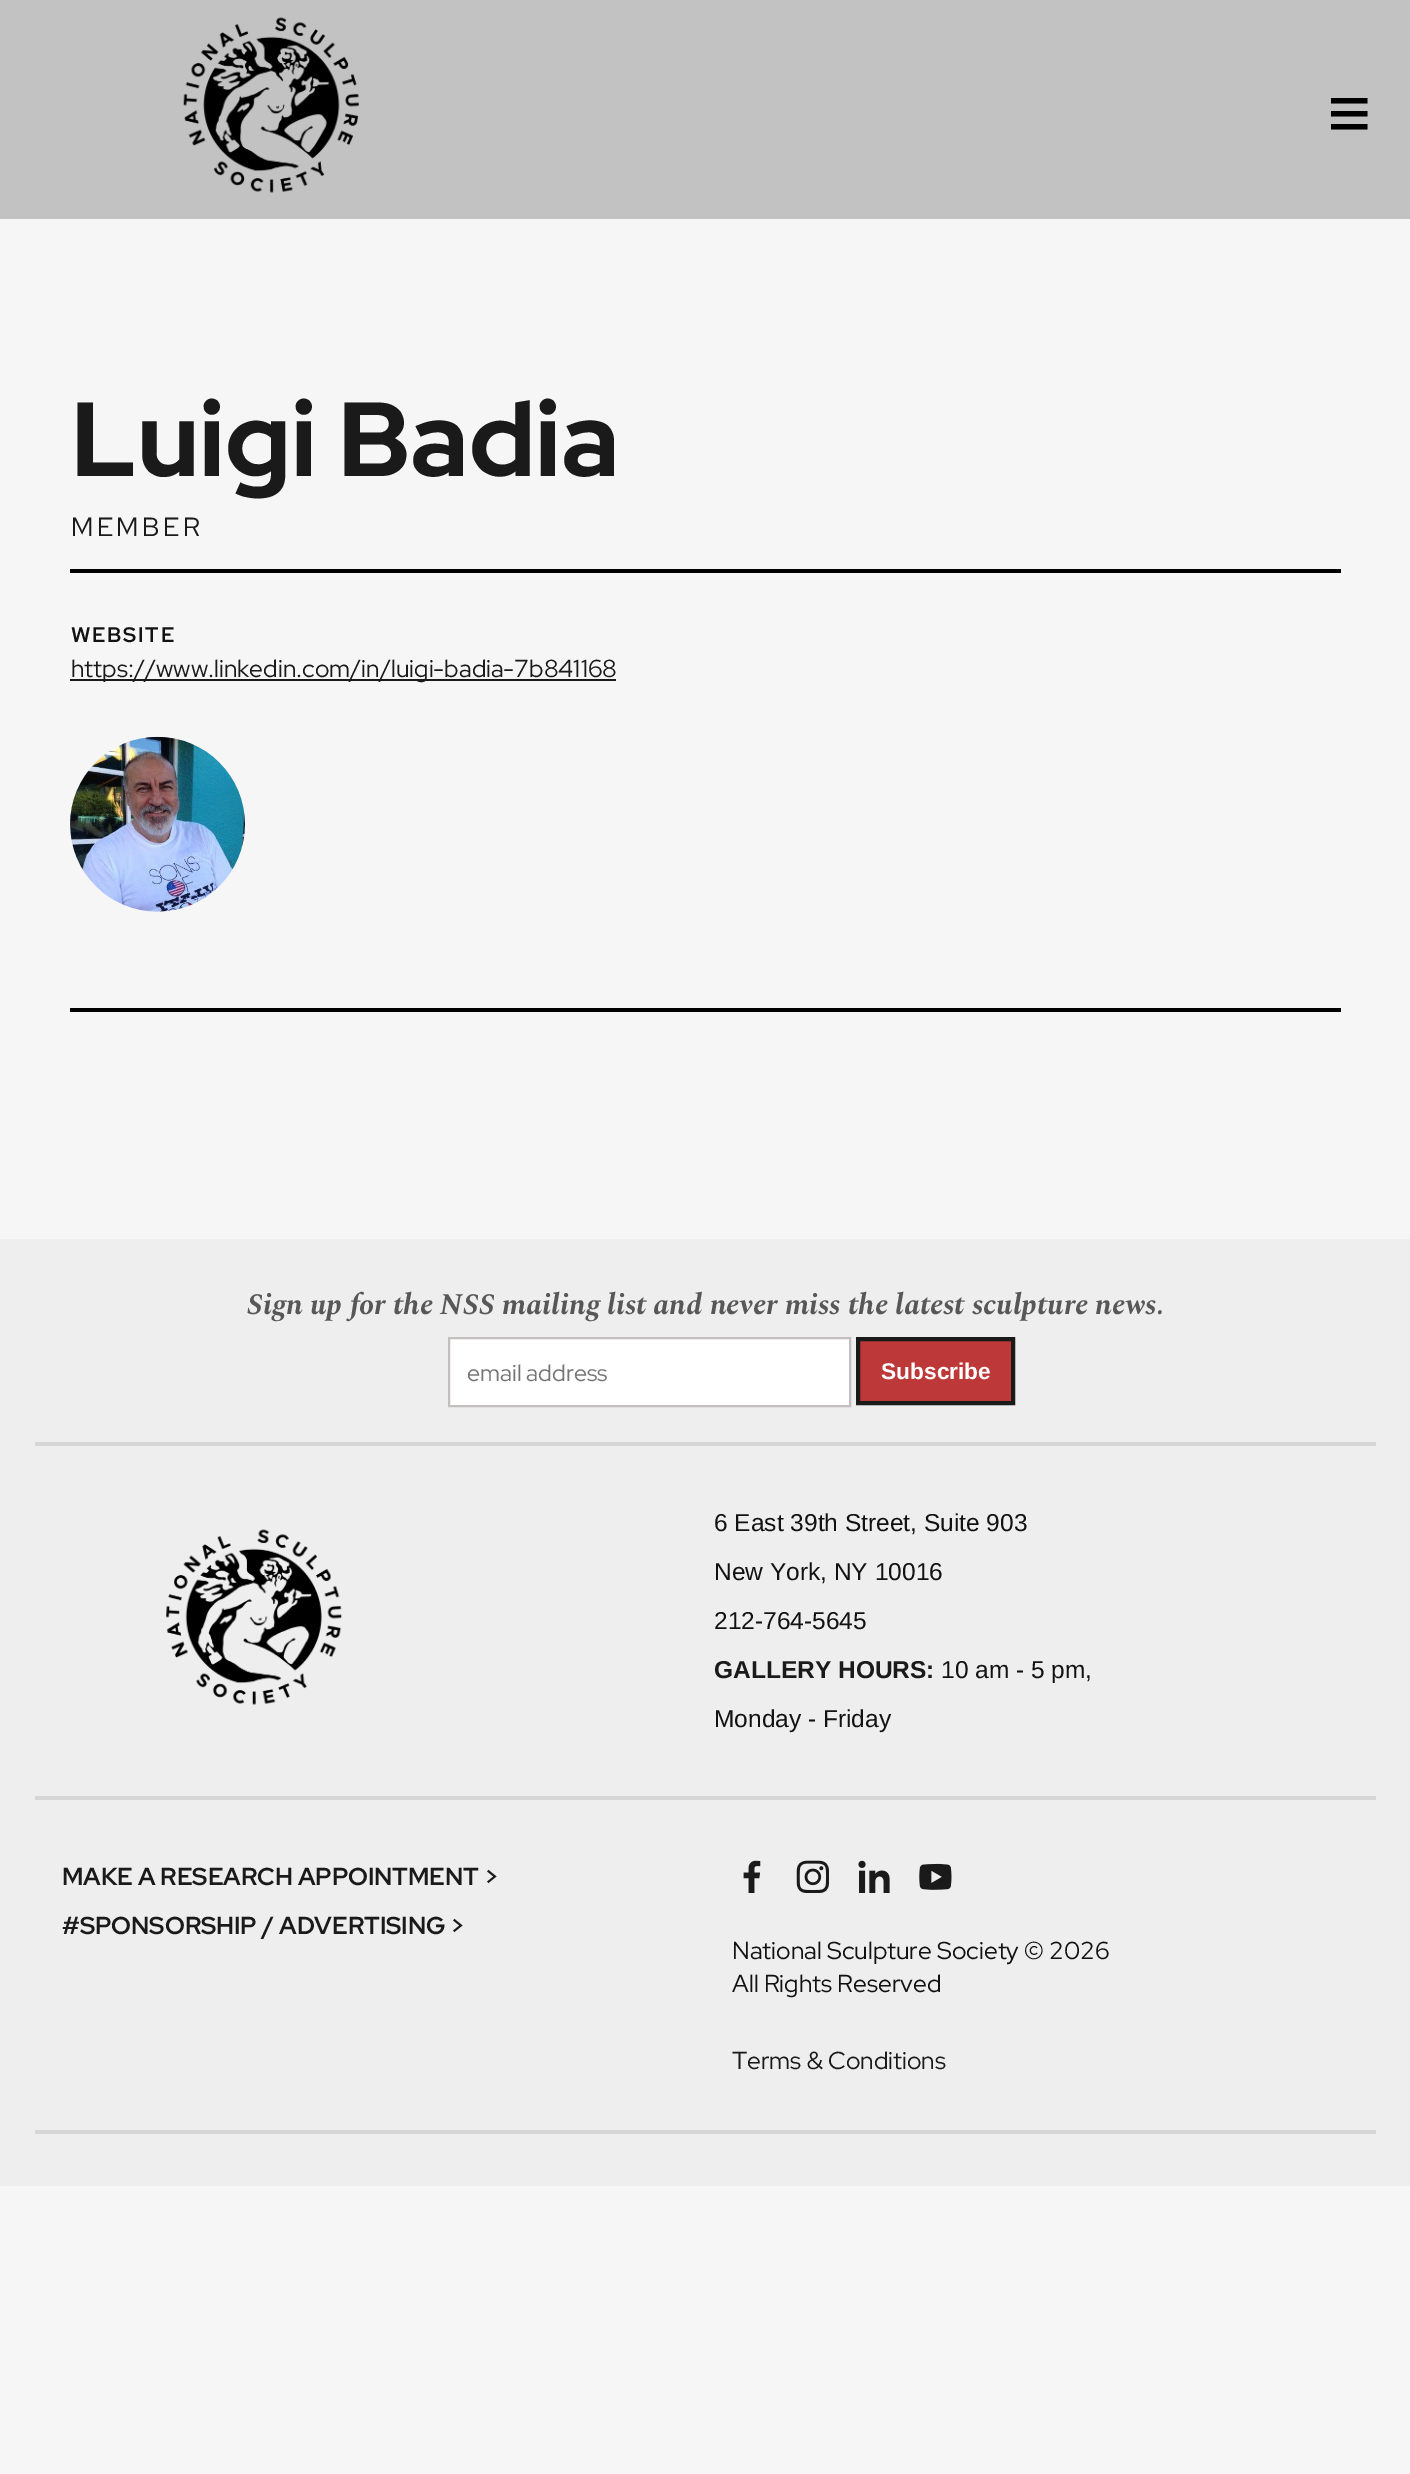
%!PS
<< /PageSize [1410 2474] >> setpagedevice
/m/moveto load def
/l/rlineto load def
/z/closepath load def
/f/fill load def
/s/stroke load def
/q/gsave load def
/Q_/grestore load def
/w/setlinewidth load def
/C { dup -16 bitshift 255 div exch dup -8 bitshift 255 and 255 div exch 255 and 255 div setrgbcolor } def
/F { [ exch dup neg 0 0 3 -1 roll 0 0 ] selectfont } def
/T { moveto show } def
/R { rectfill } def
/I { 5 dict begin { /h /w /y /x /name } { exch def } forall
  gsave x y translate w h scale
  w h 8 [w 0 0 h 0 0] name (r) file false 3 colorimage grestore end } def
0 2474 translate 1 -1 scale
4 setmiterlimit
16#F6F6F6 C
0 0 1410 2474 R
16#C2C2C2 C
0 0 1410 219 R
(1.rgb) 183 17 176 176 I
16#000000 C
1331 116.5 m 36.5 0 l 0 -5.5 l -36.5 0 l z 1331 129.5 m 36.5 0 l 0 -5.5 l -36.5 0 l z 1331 98 m 0 5.5 l 36.5 0 l 0 -5.5 l z f
70 569 1271 4 R
/RedHatDisplay-ExtraBold 105 F
16#1A1A1A C
(Luigi Badia) 71 476 T
/RedHatDisplay-Regular 26.25 F
71 536 m 3.5 0 (MEMBER) ashow
16#000000 C
70 1008 1271 4 R
/RedHatDisplay-Bold 21 F
16#121212 C
71 642 m 1.75 0 (WEBSITE) ashow
16#1A1A1A C
70 679 546 2 R
/RedHatDisplay-Regular 24.5 F
(https://www.linkedin.com/in/luigi-badia-7b841168) 71 677 T
(2.rgb) 70 736 175 176 I
16#EEEEEE C
0 1239 1410 947 R
16#D6D6D6 C
35 1442 1341 4 R
/Spectral-BoldItalic 29.75 F
16#575757 C
(Sign up for the NSS mailing list and never miss the latest sculpture news.) 247 1314 T
16#FFFFFF C
449 1338 m 401 0 l 0 68 l -401 0 l z q f Q_
16#C3BFBF C
2 w
s
/RedHatDisplay-Regular 23.25 F
16#757575 C
(email address) 467 1381 T
16#BD3838 C
858 1339 m 155 0 l 0 64 l -155 0 l z q f Q_
16#1A1A1A C
4 w
s
/LiberationSans-Bold 22.75 F
16#FFFFFF C
(Subscribe) 881 1379 T
16#D6D6D6 C
35 2130 1341 4 R
35 1796 1341 4 R
(3.rgb) 166 1529 176 176 I
/LiberationSans-Regular 24.5 F
16#121212 C
(6 East 39th Street, Suite 903) 714 1531 T
(New York, NY 10016) 714 1580 T
(212-764-5645) 714 1629 T
/LiberationSans-Bold 24.5 F
16#1A1A1A C
(GALLERY HOURS:) 714 1678 T
/LiberationSans-Regular 24.5 F
16#121212 C
(10 am - 5 pm,) 941 1678 T
(Monday - Friday) 714 1727 T
/RedHatDisplay-Bold 24.5 F
16#1A1A1A C
(MAKE A RESEARCH APPOINTMENT >) 62 1885 T
(#SPONSORSHIP / ADVERTISING >) 62 1934 T
(4.rgb) 743 1860 18 33 I
(5.rgb) 796 1860 33 33 I
(6.rgb) 858 1860 32 33 I
(7.rgb) 919 1863 33 27 I
/RedHatDisplay-Regular 24.5 F
16#121212 C
(National Sculpture Society © 2026) 732 1959 T
(All Rights Reserved) 732 1992 T
16#1A1A1A C
(Terms & Conditions) 732 2069 T
showpage
